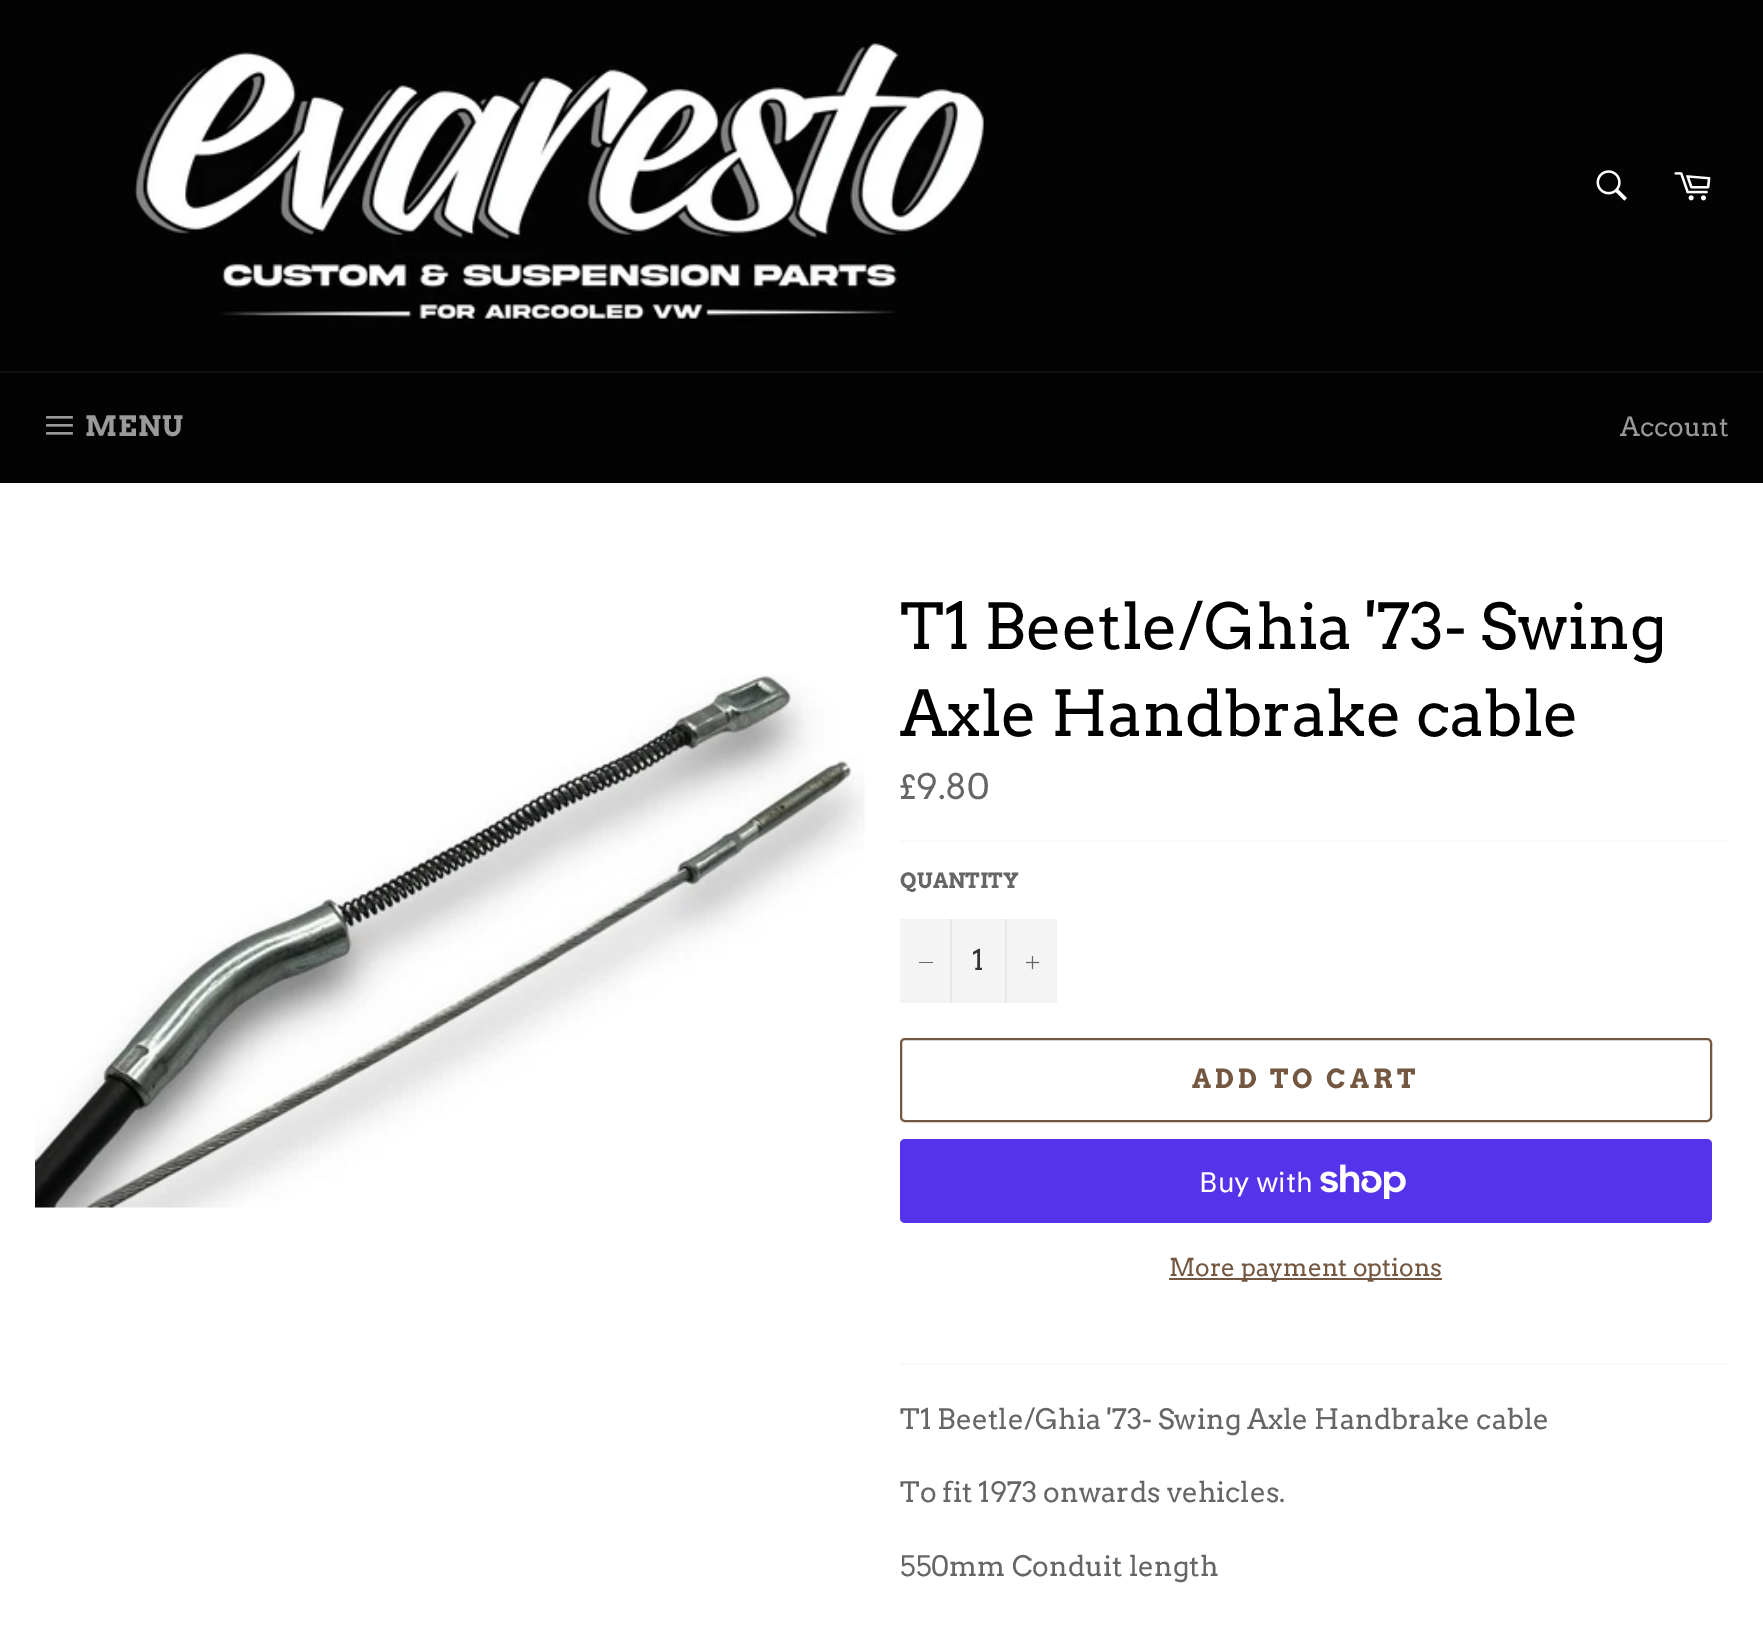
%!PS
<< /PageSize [1763 1634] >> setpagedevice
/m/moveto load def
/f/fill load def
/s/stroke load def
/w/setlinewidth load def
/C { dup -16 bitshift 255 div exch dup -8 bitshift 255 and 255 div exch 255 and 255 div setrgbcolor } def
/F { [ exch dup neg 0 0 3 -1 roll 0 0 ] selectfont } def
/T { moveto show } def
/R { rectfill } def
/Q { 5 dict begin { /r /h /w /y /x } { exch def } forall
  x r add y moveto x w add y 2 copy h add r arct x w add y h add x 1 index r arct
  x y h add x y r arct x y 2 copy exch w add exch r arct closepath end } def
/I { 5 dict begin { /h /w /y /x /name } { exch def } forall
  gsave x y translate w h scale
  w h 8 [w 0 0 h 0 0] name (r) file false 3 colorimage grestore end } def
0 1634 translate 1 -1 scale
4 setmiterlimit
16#030303 C
0 0 1763 1634 R
(1.rgb) 134 43 850 279 I
(2.rgb) 1596 170 31 31 I
(3.rgb) 1674 172 37 29 I
16#101010 C
0 371 1763 2 R
(4.rgb) 46 416 27 19 I
/Arvo-Bold 28 F
16#9A9A9A C
85 436 m 1 0 (MENU) ashow
/Arvo-Regular 26.25 F
(Account) 1620 436 T
16#FFFFFF C
0 483 1763 1151 R
(5.rgb) 35 674 830 534 I
/Arvo-Regular 63 F
16#000000 C
(T1 Beetle/Ghia '73- Swing) 900 649 T
(Axle Handbrake cable) 900 736 T
/Arvo-Regular 35 F
16#666666 C
(£9.80) 900 799 T
16#FAFAFA C
900 840 829 2 R
/Arvo-Bold 21 F
16#666666 C
(QUANTITY) 900 888 T
16#F4F4F4 C
900 919 157 84 R
16#E7E7E7 C
950 919 2 84 R
16#666666 C
919 962 14 1 R
/Arvo-Regular 28 F
16#333333 C
(1) 972 970 T
16#E7E7E7 C
1005 919 2 84 R
(6.rgb) 1026 956 14 14 I
16#745741 C
2 w
901 1039 810 82 4 Q s
/Arvo-Bold 26.25 F
1192 1088 m 4 0 (ADD TO CART) ashow
16#5433EB C
900 1139 812 84 5 Q f
/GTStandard-Regular 28 F
16#FFFFFF C
(Buy with) 1199 1192 T
(7.rgb) 1320 1164 86 35 I
16#745741 C
1169 1278 273 2 R
/Arvo-Regular 24.5 F
(More payment options) 1169 1276 T
16#FAFAFA C
900 1363 829 2 R
/Arvo-Regular 28 F
16#666666 C
(T1 Beetle/Ghia '73- Swing Axle Handbrake cable) 900 1429 T
(To fit 1973 onwards vehicles.) 900 1502 T
(550mm Conduit length) 900 1576 T
showpage
